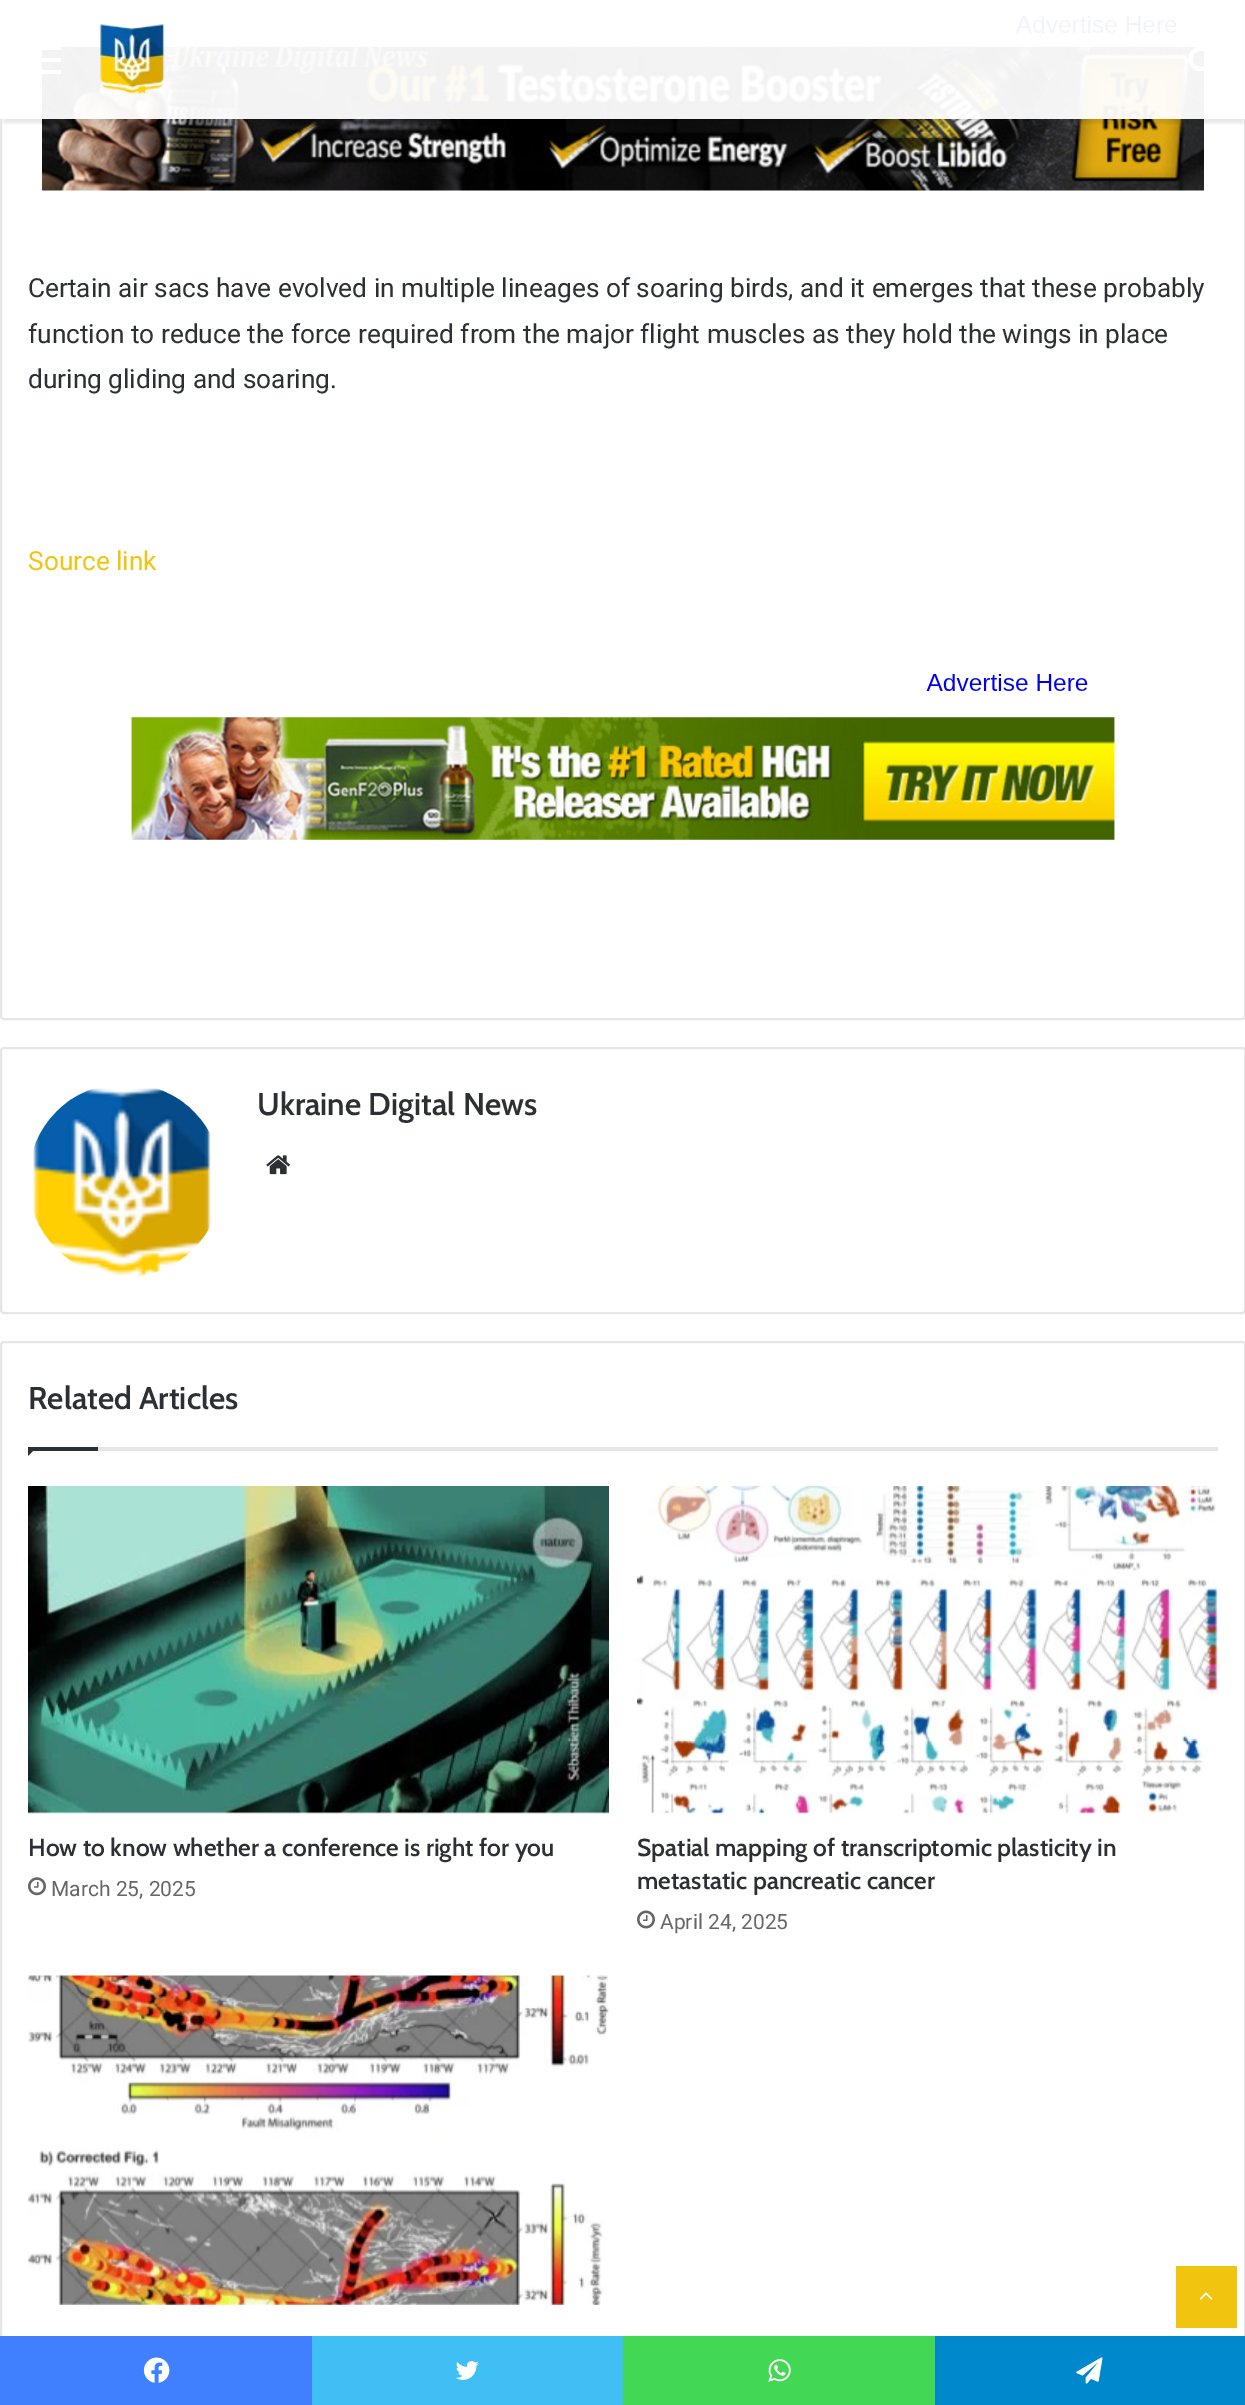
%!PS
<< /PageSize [1245 2405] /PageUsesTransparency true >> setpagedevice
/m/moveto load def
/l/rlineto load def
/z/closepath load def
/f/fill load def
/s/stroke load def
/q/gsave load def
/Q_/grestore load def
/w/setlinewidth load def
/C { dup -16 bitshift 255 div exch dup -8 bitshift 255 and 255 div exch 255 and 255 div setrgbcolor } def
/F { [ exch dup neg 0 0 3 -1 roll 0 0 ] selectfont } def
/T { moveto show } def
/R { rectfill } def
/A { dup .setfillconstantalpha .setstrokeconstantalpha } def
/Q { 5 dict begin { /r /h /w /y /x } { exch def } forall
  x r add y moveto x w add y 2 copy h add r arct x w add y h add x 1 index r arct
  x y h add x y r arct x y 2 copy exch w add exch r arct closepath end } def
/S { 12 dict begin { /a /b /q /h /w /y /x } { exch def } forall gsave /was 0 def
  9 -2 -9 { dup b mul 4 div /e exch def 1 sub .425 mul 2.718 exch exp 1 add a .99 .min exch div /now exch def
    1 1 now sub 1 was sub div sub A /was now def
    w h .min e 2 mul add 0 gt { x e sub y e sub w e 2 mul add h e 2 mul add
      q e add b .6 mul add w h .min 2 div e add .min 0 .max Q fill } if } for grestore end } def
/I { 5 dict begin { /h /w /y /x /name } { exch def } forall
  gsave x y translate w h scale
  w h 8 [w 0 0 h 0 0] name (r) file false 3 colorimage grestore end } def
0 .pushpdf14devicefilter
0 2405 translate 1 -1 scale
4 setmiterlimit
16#FFFFFF C
0 0 1245 2405 R
16#E6E6E6 C
2 w
1 -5 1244 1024 3 Q s
(3.rgb) 42 16 1162 175 I
q
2 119 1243 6 rectclip
16#000000 C
4 11 1239 112 0 2 .1 S
Q_
0.95 A
16#FFFFFF C
0 0 1245 119 R
1 A
42 58 19 4 R
42 47 19 3 R
42 70 19 4 R
(1.rgb) 100 24 328 71 I
(2.rgb) 1188 47 16 24 I
/Roboto-Regular 26.25 F
16#2C2F34 C
(Certain air sacs have evolved in multiple lineages of soaring birds, and it emerges that these probably) 28 297 T
(function to reduce the force required from the major flight muscles as they hold the wings in place) 28 343 T
(during gliding and soaring.) 28 388 T
16#F1C40F C
(Source link) 28 570 T
(4.rgb) 131 674 984 166 I
16#E6E6E6 C
1 1048 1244 265 3 Q s
(5.rgb) 33 1088 178 189 I
/Cabin-SemiBold 31.5 F
16#2C2F34 C
(Ukraine Digital News) 257 1115 T
(6.rgb) 266 1155 24 20 I
16#E6E6E6 C
1 1342 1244 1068 3 Q s
98 1447 1120 4 R
16#2C2F34 C
(Related Articles) 28 1409 T
28 1447 m 9 0 l -9 9 l z f
28 1447 70 4 R
(7.rgb) 28 1486 581 328 I
/Cabin-SemiBold 24.5 F
(How to know whether a conference is right for you) 28 1856 T
(8.rgb) 28 1877 18 19 I
/Roboto-Regular 21 F
16#666666 C
(March 25, 2025) 51 1896 T
(9.rgb) 637 1486 581 328 I
/Cabin-SemiBold 24.5 F
16#2C2F34 C
(Spatial mapping of transcriptomic plasticity in) 637 1856 T
(metastatic pancreatic cancer) 637 1889 T
(10.rgb) 637 1910 18 19 I
/Roboto-Regular 21 F
16#666666 C
(April 24, 2025) 660 1929 T
(11.rgb) 28 1975 581 330 I
16#F1C40F C
1176 2266 61 62 R
(12.rgb) 1199 2292 14 8 I
16#4080FF C
0 2336 312 69 R
(13.rgb) 143 2357 27 26 I
16#40BFF5 C
312 2336 311 69 R
(14.rgb) 455 2361 24 19 I
16#43D854 C
623 2336 312 69 R
(15.rgb) 768 2359 23 23 I
16#0088CC C
935 2336 310 69 R
(16.rgb) 1076 2357 27 27 I
.poppdf14devicefilter showpage
